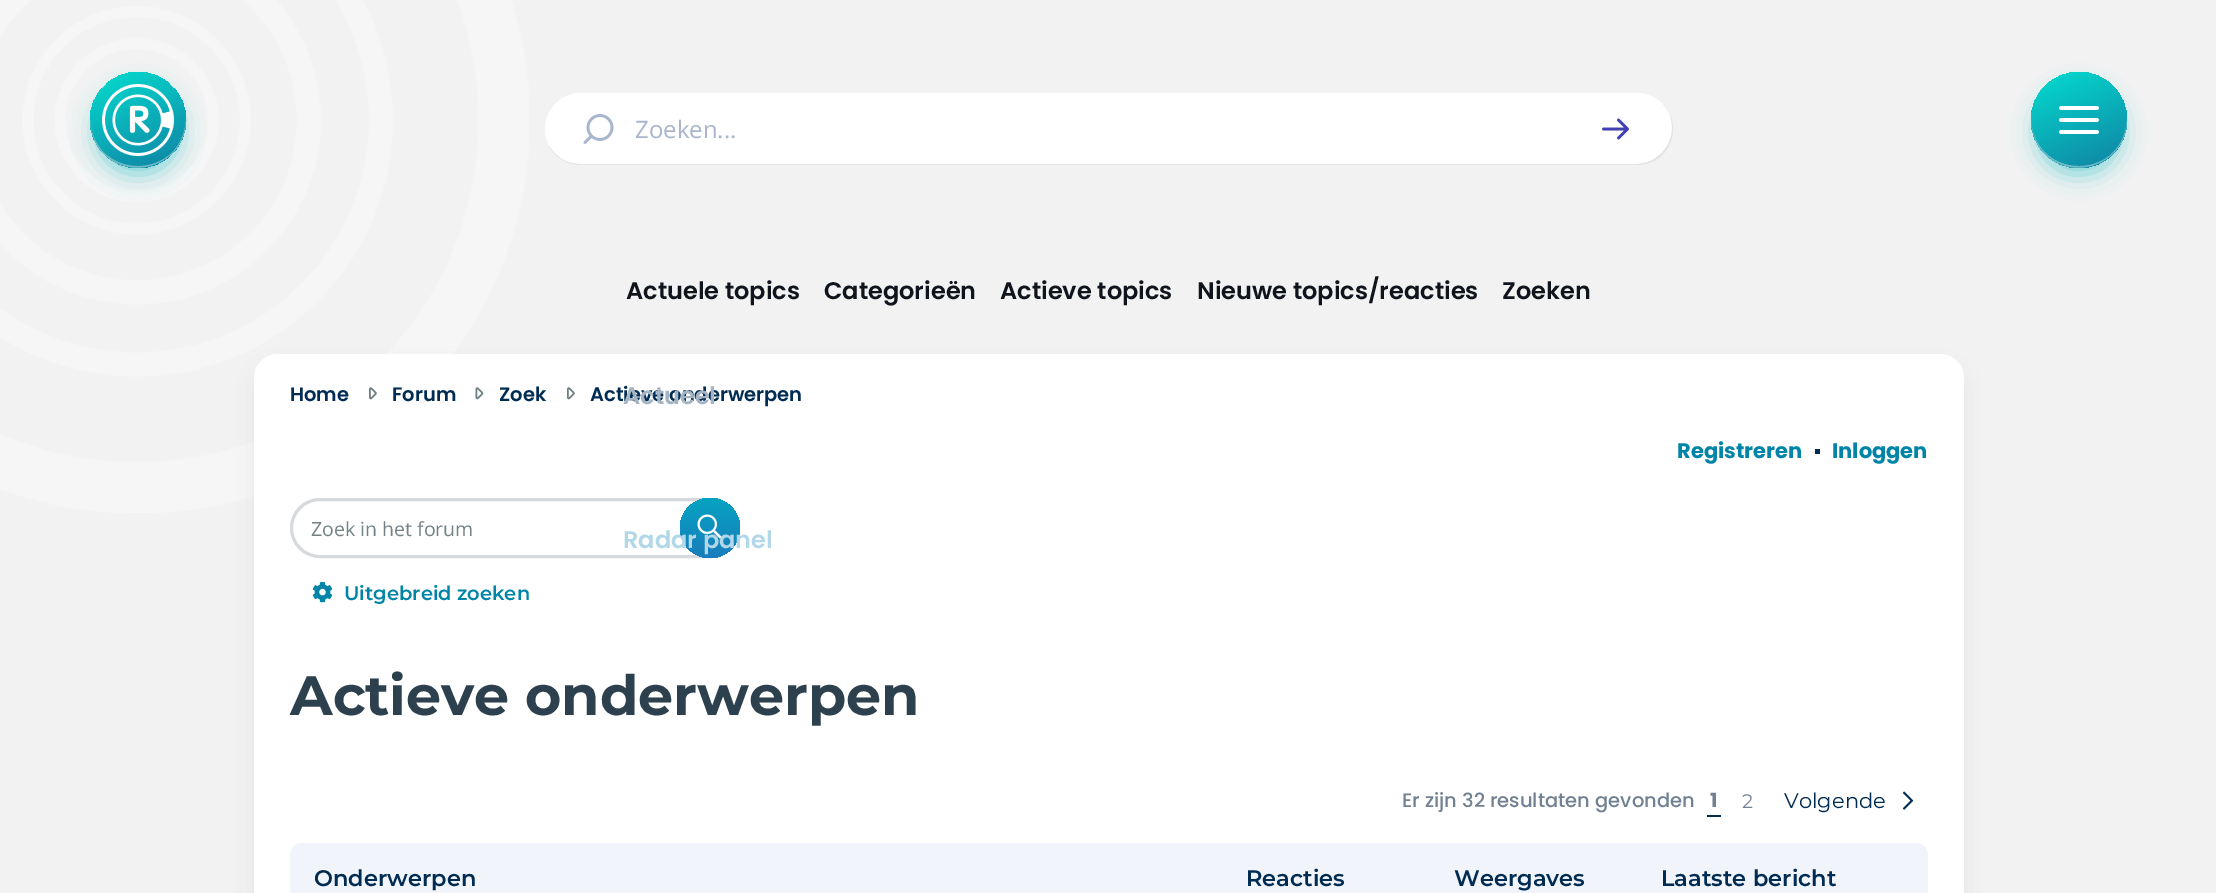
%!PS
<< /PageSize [2216 893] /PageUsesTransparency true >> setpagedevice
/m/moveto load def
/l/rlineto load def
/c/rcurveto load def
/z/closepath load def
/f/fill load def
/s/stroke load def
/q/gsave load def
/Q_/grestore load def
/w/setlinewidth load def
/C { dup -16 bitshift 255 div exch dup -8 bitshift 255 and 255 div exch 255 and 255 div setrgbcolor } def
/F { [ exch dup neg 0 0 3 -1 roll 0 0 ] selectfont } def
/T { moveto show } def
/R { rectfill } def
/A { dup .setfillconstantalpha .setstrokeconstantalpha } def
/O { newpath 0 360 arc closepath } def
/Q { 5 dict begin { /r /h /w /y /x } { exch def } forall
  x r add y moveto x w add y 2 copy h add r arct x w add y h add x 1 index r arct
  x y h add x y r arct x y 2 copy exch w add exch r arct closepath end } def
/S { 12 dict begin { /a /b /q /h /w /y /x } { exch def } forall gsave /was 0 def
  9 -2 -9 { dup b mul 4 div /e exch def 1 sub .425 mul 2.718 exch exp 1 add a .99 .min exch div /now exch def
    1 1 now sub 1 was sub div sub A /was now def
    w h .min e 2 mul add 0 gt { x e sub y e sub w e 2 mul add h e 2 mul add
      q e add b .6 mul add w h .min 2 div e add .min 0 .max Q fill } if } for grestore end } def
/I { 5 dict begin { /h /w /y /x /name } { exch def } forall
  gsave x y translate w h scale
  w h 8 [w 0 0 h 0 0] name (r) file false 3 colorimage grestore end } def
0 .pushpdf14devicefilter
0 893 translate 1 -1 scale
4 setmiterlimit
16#F2F2F2 C
0 0 2216 893 R
(1.rgb) 0 0 529 513 I
16#20BEC7 C
96 90 84 84 42 12 .6 S
q 138 120 48 O clip newpath
<< /ShadingType 2 /ColorSpace /DeviceRGB /Coords [112 62 164 178] /Extend [true true] /Function << /FunctionType 3 /Domain [0 1] /Functions [<< /FunctionType 2 /Domain [0 1] /C0 [.016 .867 .812] /C1 [.059 .518 .643] /N 1 >> << /FunctionType 2 /Domain [0 1] /C0 [.059 .518 .643] /C1 [.059 .518 .643] /N 1 >>] /Bounds [.97] /Encode [0 1 0 1] >> >> shfill Q_
16#6FB9C5 C
186 119 m -1 27 -21 47 -48 47 c -27 0 -47 -20 -48 -47 c 0 10 3 20 8 28 c 27 39 89 19 88 -28 c z f
(2.rgb) 102 84 72 72 I
16#FFFFFF C
545 93 1128 72 36 Q f
0.12 A
16#101828 C
549 146 m 6 11 18 19 32 19 c 1056 0 l 20 0 36 -16 36 -36 c 0 -10 -4 -18 -10 -25 c 6 6 9 15 9 24 c 0 19 -16 36 -36 36 c -1056 0 l -13 0 -24 -7 -31 -18 c z f
1 A
(3.rgb) 583 114 31 30 I
/OpenSans-Regular 24 F
16#A9B5CD C
(Zoeken...) 635 138 T
(4.rgb) 1602 118 27 22 I
16#20BEC7 C
2037 90 84 84 42 12 .6 S
q 2079 120 48 O clip newpath
<< /ShadingType 2 /ColorSpace /DeviceRGB /Coords [2053 62 2105 178] /Extend [true true] /Function << /FunctionType 3 /Domain [0 1] /Functions [<< /FunctionType 2 /Domain [0 1] /C0 [.016 .867 .812] /C1 [.059 .518 .643] /N 1 >> << /FunctionType 2 /Domain [0 1] /C0 [.059 .518 .643] /C1 [.059 .518 .643] /N 1 >>] /Bounds [.97] /Encode [0 1 0 1] >> >> shfill Q_
16#6FB9C5 C
2127 119 m -1 27 -21 47 -48 47 c -27 0 -47 -20 -48 -47 c 0 10 3 20 8 28 c 27 39 89 19 88 -28 c z f
(5.rgb) 2059 106 40 28 I
16#101828 C
260 372 1698 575 18 12 .08 S
16#FFFFFF C
254 354 1710 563 24 Q f
/Poppins-SemiBold 19.5 F
16#002C53 C
(Actieve onderwerpen) 590 401 T
/Poppins-SemiBold 24 F
16#A4B4C2 C
(Actueel) 623 404 T
16#D6DADD C
3 w
291.5 499.5 447 57 28.5 Q s
q 710 528 30 O clip newpath
<< /ShadingType 2 /ColorSpace /DeviceRGB /Coords [710 498 710 618] /Extend [true true] /Function << /FunctionType 3 /Domain [0 1] /Functions [<< /FunctionType 2 /Domain [0 1] /C0 [.02 .639 .761] /C1 [.098 .49 .733] /N 1 >> << /FunctionType 2 /Domain [0 1] /C0 [.098 .49 .733] /C1 [.075 .373 .557] /N 1 >> << /FunctionType 2 /Domain [0 1] /C0 [.075 .373 .557] /C1 [.051 .255 .38] /N 1 >>] /Bounds [.5 .75] /Encode [0 1 0 1 0 1] >> >> shfill Q_
(8.rgb) 697 514 25 25 I
16#B1D7E9 C
(Radar panel) 623 548 T
16#10141C C
(Actuele topics) 626 299 T
(Categorieën) 824 299 T
(Actieve topics) 1000 299 T
(Nieuwe topics/reacties) 1197 299 T
(Zoeken) 1502 299 T
/Poppins-SemiBold 19.5 F
16#002C53 C
(Home) 290 401 T
(6.rgb) 369 387 8 13 I
(Forum) 392 401 T
(7.rgb) 475 387 9 13 I
(Zoek) 499 401 T
(6.rgb) 567 387 8 13 I
/Poppins-Bold 21 F
16#0084A7 C
(Registreren) 1677 458 T
16#002C53 C
1815 449 5 5 R
16#0084A7 C
(Inloggen) 1832 458 T
/OpenSans-Regular 19.5 F
16#728287 C
(Zoek in het forum) 311 536 T
(9.rgb) 312 582 21 21 I
/Montserrat-SemiBold 19.5 F
16#0084A7 C
(Uitgebreid zoeken) 344 600 T
/Montserrat-Bold 55.5 F
16#2D404E C
(Actieve onderwerpen) 290 715 T
/Poppins-Medium 19.5 F
16#718092 C
(Er zijn 32 resultaten gevonden) 1402 807 T
/Poppins-Bold 19.5 F
(1) 1710 807 T
16#002C53 C
1707 815 14 2 R
/Montserrat-Regular 19.5 F
16#718092 C
(2) 1742 808 T
/Montserrat-Regular 21 F
16#002C53 C
(Volgende) 1784 808 T
(10.rgb) 1902 791 12 19 I
16#F1F4FB C
290 843 1638 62 12 Q f
/Montserrat-SemiBold 22.5 F
16#002C53 C
(Onderwerpen) 314 886 T
(Reacties) 1246 886 T
(Weergaves) 1454 886 T
(Laatste bericht) 1661 886 T
.poppdf14devicefilter showpage
